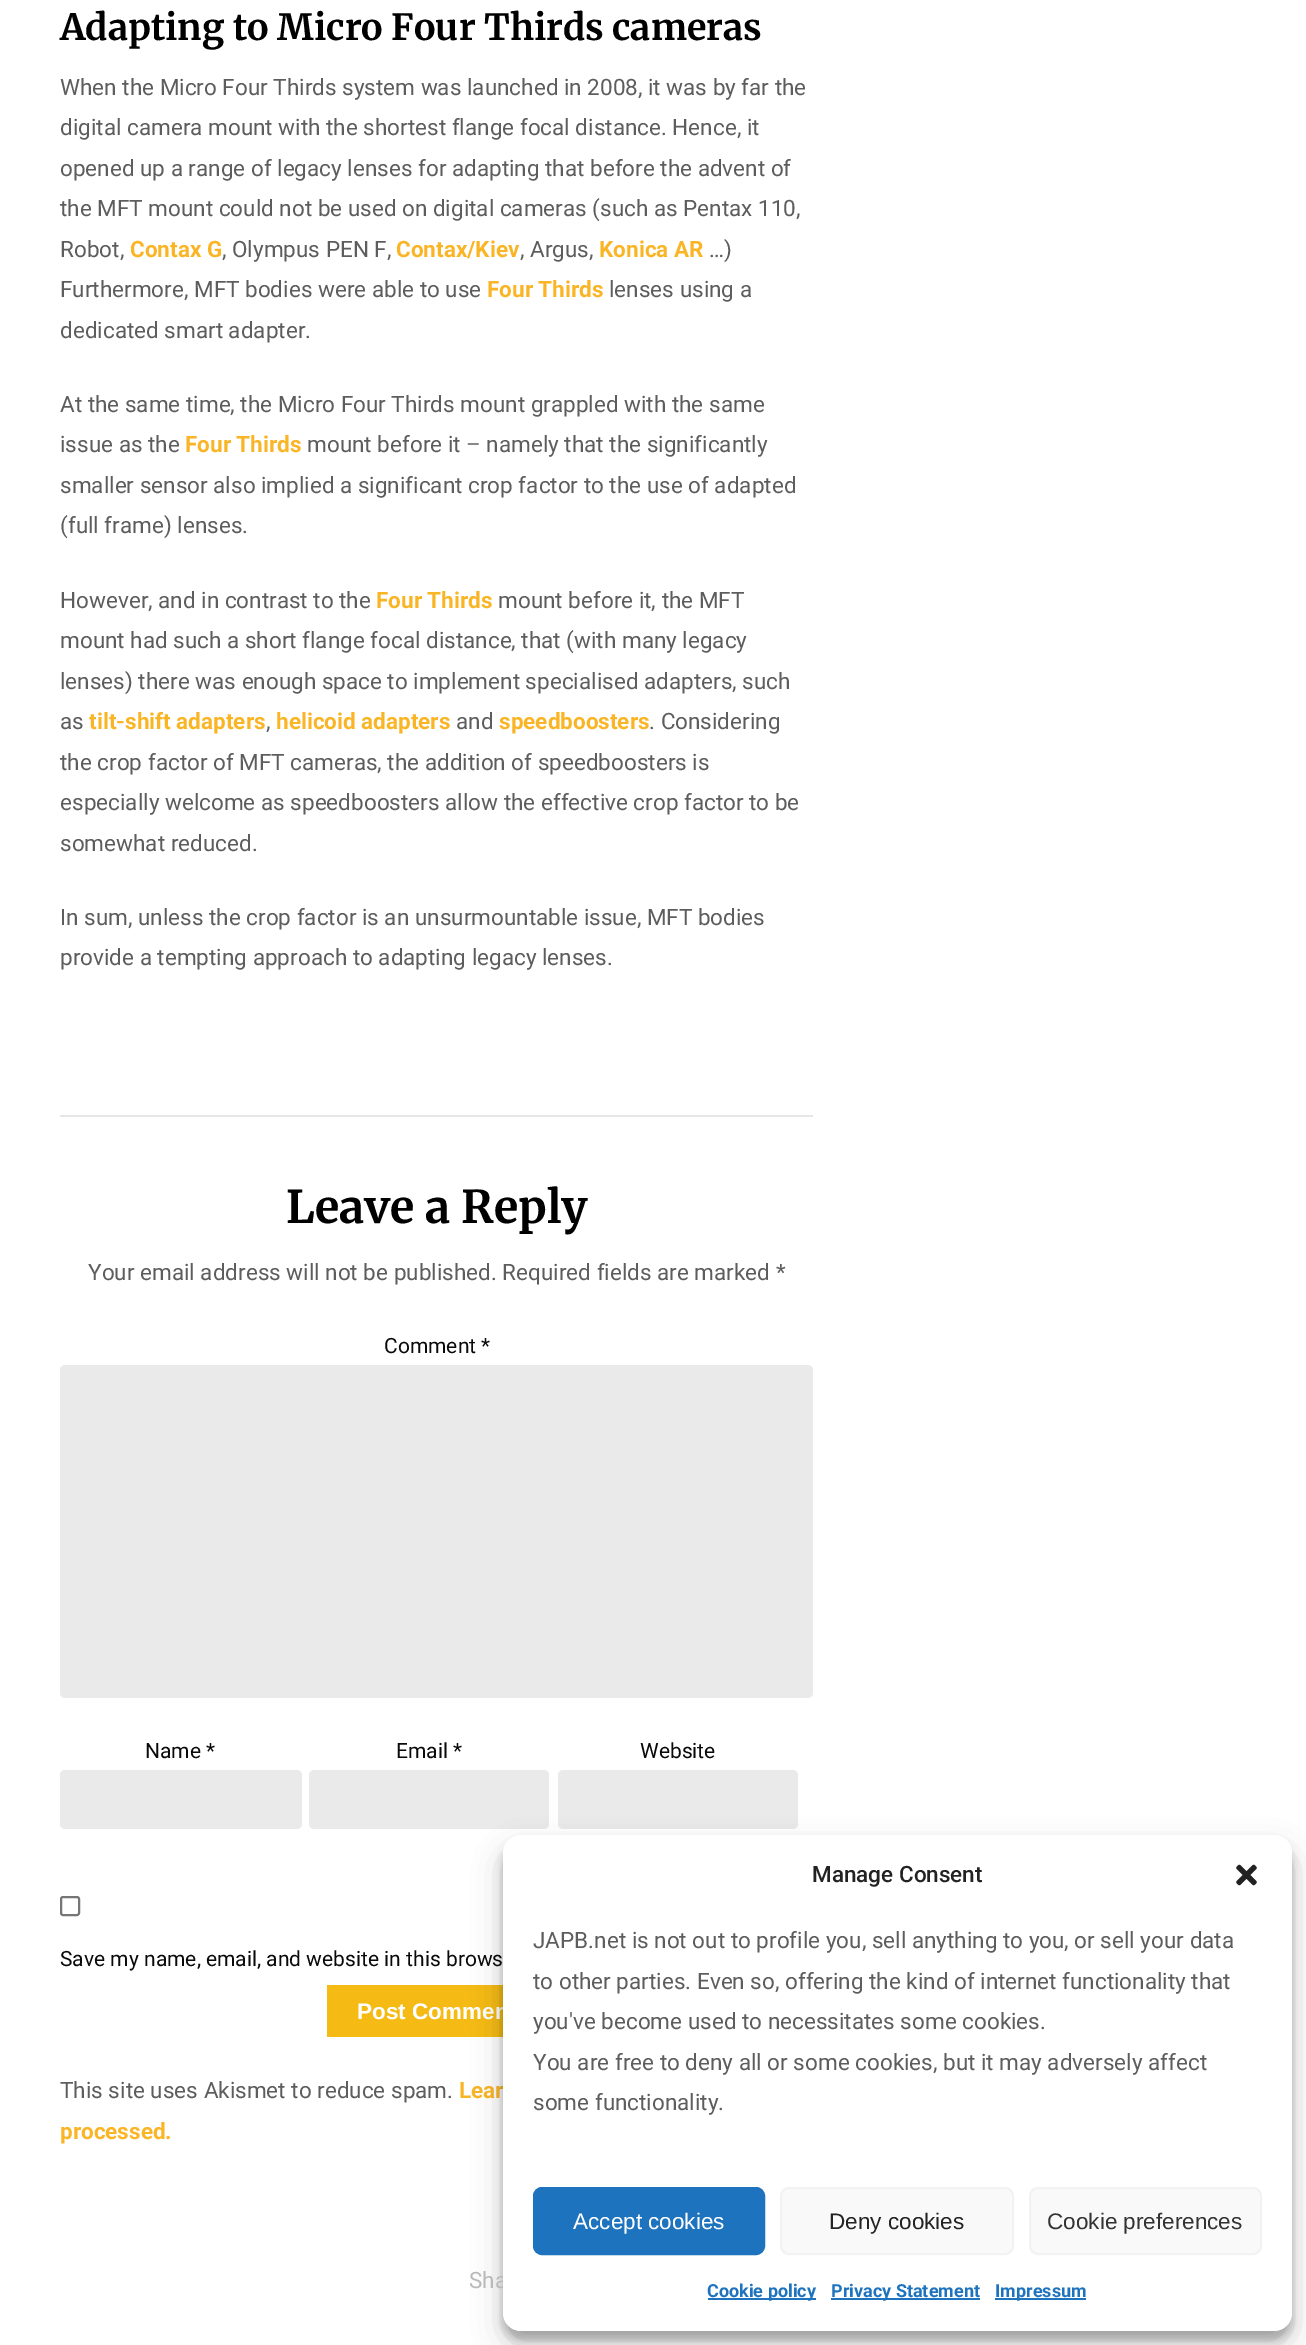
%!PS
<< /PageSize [1306 2345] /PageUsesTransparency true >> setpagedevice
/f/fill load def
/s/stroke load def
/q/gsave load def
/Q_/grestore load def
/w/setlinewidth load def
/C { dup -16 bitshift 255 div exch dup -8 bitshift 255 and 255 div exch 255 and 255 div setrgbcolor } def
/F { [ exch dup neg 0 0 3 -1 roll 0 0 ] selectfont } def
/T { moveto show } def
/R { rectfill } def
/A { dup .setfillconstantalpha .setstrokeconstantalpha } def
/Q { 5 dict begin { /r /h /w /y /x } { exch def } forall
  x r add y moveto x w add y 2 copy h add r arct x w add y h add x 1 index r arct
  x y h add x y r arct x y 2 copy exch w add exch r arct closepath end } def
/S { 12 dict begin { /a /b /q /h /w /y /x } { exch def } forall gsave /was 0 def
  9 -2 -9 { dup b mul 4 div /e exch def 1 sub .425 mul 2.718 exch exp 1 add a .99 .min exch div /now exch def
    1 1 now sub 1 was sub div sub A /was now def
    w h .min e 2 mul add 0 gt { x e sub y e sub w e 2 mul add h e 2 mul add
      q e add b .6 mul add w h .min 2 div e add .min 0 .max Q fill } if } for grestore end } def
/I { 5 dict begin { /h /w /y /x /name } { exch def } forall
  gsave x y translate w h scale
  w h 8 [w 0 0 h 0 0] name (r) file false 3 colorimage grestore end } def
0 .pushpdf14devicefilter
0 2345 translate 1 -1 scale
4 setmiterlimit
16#FFFFFF C
0 0 1306 2345 R
/Merriweather-Bold 36 F
16#000000 C
(Adapting to Micro Four Thirds cameras) 60 40 T
/Roboto-Regular 22.5 F
16#5D5D5D C
(When the Micro Four Thirds system was launched in 2008, it was by far the) 60 95 T
(digital camera mount with the shortest flange focal distance. Hence, it) 60 135 T
(opened up a range of legacy lenses for adapting that before the advent of) 60 176 T
(the MFT mount could not be used on digital cameras \(such as Pentax 110,) 60 216 T
(Robot,) 60 257 T
/Roboto-Bold 22.5 F
16#FAB526 C
(Contax G) 130 257 T
/Roboto-Regular 22.5 F
16#5D5D5D C
(, Olympus PEN F,) 222 257 T
/Roboto-Bold 22.5 F
16#FAB526 C
(Contax/Kiev) 396 257 T
/Roboto-Regular 22.5 F
16#5D5D5D C
(, Argus,) 520 257 T
/Roboto-Bold 22.5 F
16#FAB526 C
(Konica AR) 599 257 T
/Roboto-Regular 22.5 F
16#5D5D5D C
(…\)) 709 257 T
(Furthermore, MFT bodies were able to use) 60 297 T
/Roboto-Bold 22.5 F
16#FAB526 C
(Four Thirds) 487 297 T
/Roboto-Regular 22.5 F
16#5D5D5D C
(lenses using a) 609 297 T
(dedicated smart adapter.) 60 338 T
(At the same time, the Micro Four Thirds mount grappled with the same) 60 412 T
(issue as the) 60 452 T
/Roboto-Bold 22.5 F
16#FAB526 C
(Four Thirds) 185 452 T
/Roboto-Regular 22.5 F
16#5D5D5D C
(mount before it – namely that the significantly) 307 452 T
(smaller sensor also implied a significant crop factor to the use of adapted) 60 493 T
(\(full frame\) lenses.) 60 533 T
(However, and in contrast to the) 60 608 T
/Roboto-Bold 22.5 F
16#FAB526 C
(Four Thirds) 376 608 T
/Roboto-Regular 22.5 F
16#5D5D5D C
(mount before it, the MFT) 498 608 T
(mount had such a short flange focal distance, that \(with many legacy) 60 648 T
(lenses\) there was enough space to implement specialised adapters, such) 60 689 T
(as) 60 729 T
/Roboto-Bold 22.5 F
16#FAB526 C
(tilt-shift adapters) 89 729 T
/Roboto-Regular 22.5 F
16#5D5D5D C
(,) 266 729 T
/Roboto-Bold 22.5 F
16#FAB526 C
(helicoid adapters) 276 729 T
/Roboto-Regular 22.5 F
16#5D5D5D C
(and) 456 729 T
/Roboto-Bold 22.5 F
16#FAB526 C
(speedboosters) 499 729 T
/Roboto-Regular 22.5 F
16#5D5D5D C
(. Considering) 649 729 T
(the crop factor of MFT cameras, the addition of speedboosters is) 60 770 T
(especially welcome as speedboosters allow the effective crop factor to be) 60 810 T
(somewhat reduced.) 60 851 T
(In sum, unless the crop factor is an unsurmountable issue, MFT bodies) 60 925 T
(provide a tempting approach to adapting legacy lenses.) 60 965 T
16#E6E6E6 C
60 1115 753 2 R
/Merriweather-Bold 45 F
16#000000 C
(Leave a Reply) 286 1223 T
/Roboto-Regular 22.5 F
16#5D5D5D C
(Your email address will not be published. Required fields are marked *) 88 1280 T
/Roboto-Regular 21 F
16#0A0A0A C
(Comment *) 384 1353 T
16#EAEAEA C
60 1365 753 333 5 Q f
16#0A0A0A C
(Name *) 145 1758 T
16#EAEAEA C
60 1770 242 59 5 Q f
16#0A0A0A C
(Email *) 396 1758 T
16#EAEAEA C
309 1770 240 59 5 Q f
16#0A0A0A C
(Website) 640 1758 T
16#EAEAEA C
558 1770 240 59 5 Q f
16#767676 C
2 w
61 1897 18 18 2 Q s
16#0A0A0A C
(Save my name, email, and website in this brows) 60 1966 T
16#F5BA14 C
327 1985 176 52 R
/LiberationSans-Bold 22.5 F
16#FFFFFF C
(Post Commen) 357 2019 T
/Roboto-Regular 22.5 F
16#5D5D5D C
(This site uses Akismet to reduce spam.) 60 2098 T
/Roboto-Bold 22.5 F
16#FAB526 C
(Lear) 459 2098 T
(processed.) 60 2139 T
16#000000 C
503 1844 789 496 18 4.5 .23 S
503 1850 789 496 18 15 .19 S
/Roboto-Regular 22.5 F
16#B9B9B9 C
(Sha) 469 2288 T
16#FFFFFF C
503 1835 789 496 18 Q f
/Roboto-Medium 22.5 F
16#222222 C
(Manage Consent) 812 1882 T
(1.rgb) 1236 1864 21 22 I
/Roboto-Regular 22.5 F
16#5D5D5D C
(JAPB.net is not out to profile you, sell anything to you, or sell your data) 533 1948 T
(to other parties. Even so, offering the kind of internet functionality that) 533 1989 T
(you've become used to necessitates some cookies.) 533 2029 T
(You are free to deny all or some cookies, but it may adversely affect) 533 2070 T
(some functionality.) 533 2110 T
16#1E73BE C
534 2188 230 66 8 Q q f Q_
s
/LiberationSans-Regular 22.5 F
16#FFFFFF C
(Accept cookies) 573 2229 T
16#F9F9F9 C
781 2188 232 66 8 Q q f Q_
16#F2F2F2 C
s
16#222222 C
(Deny cookies) 829 2229 T
16#F9F9F9 C
1030 2188 231 66 8 Q q f Q_
16#F2F2F2 C
s
16#333333 C
(Cookie preferences) 1047 2229 T
16#1E73BE C
708 2298 108 2 R
/Roboto-Bold 18 F
(Cookie policy) 707 2297 T
831 2298 149 2 R
(Privacy Statement) 831 2297 T
995 2298 91 2 R
(Impressum) 995 2297 T
.poppdf14devicefilter showpage
